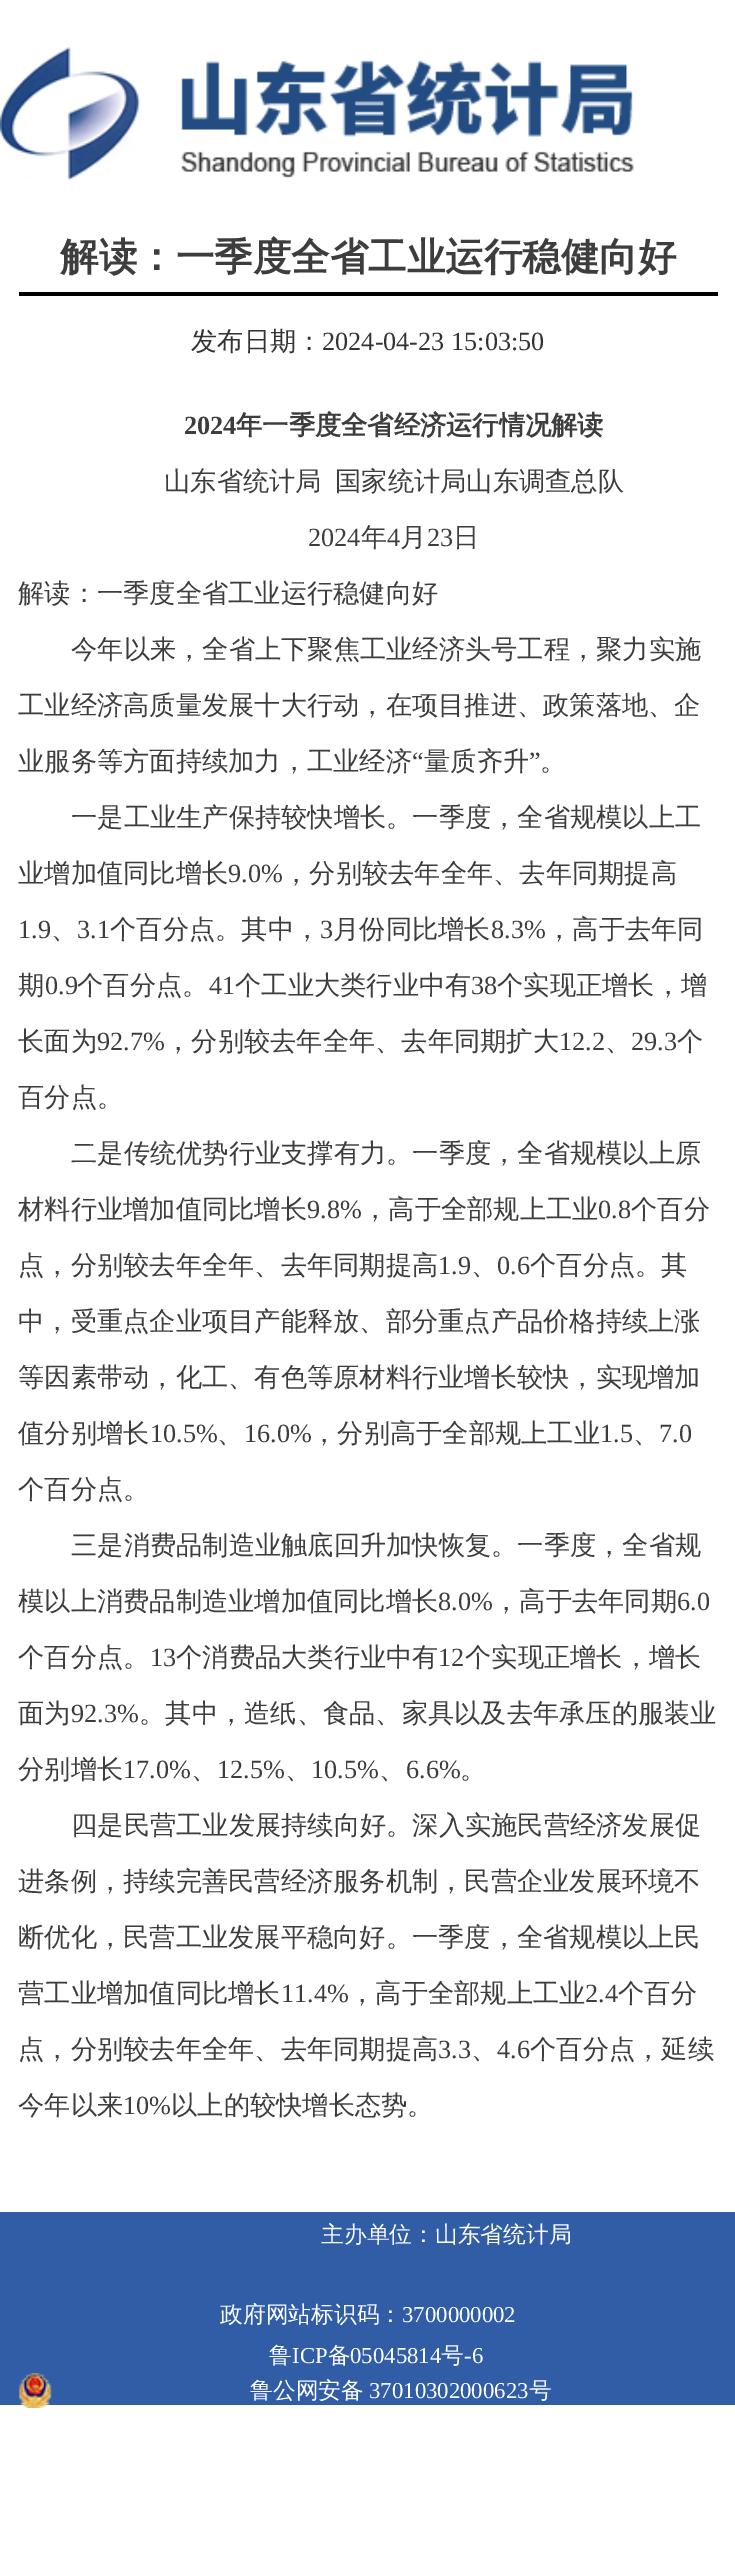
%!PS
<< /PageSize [735 2562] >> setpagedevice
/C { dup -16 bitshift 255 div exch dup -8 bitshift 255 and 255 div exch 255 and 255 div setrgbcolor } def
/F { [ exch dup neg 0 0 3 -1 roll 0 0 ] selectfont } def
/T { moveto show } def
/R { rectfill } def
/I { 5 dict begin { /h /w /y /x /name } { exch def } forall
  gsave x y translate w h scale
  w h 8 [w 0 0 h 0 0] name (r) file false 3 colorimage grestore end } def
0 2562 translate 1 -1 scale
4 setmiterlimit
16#FFFFFF C
0 0 735 2562 R
(1.rgb) 0 47 634 134 I
/WenQuanYiZenHei-Bold 38.5 F
16#3D3D3D C
(解读：一季度全省工业运行稳健向好) 60 270 T
16#000000 C
19 292 699 4 R
/WenQuanYiZenHei-Medium 26.25 F
16#333333 C
(发布日期：) 191 350 T
/LiberationSerif-Regular 26.25 F
(2024-04-23 15:03:50) 322 350 T
/LiberationSerif-Bold 26.25 F
16#3D3D3D C
(2024) 184 434 T
/WenQuanYiZenHei-Bold 26.25 F
(年一季度全省经济运行情况解读) 236 434 T
/WenQuanYiZenHei-Medium 26.25 F
(山东省统计局) 164 490 T
(国家统计局山东调查总队) 335 490 T
/LiberationSerif-Regular 26.25 F
(2024) 308 546 T
/WenQuanYiZenHei-Medium 26.25 F
(年) 361 546 T
/LiberationSerif-Regular 26.25 F
(4) 387 546 T
/WenQuanYiZenHei-Medium 26.25 F
(月) 400 546 T
/LiberationSerif-Regular 26.25 F
(23) 427 546 T
/WenQuanYiZenHei-Medium 26.25 F
(日) 453 546 T
(解读：一季度全省工业运行稳健向好) 18 602 T
(今年以来，全省上下聚焦工业经济头号工程，聚力实施) 71 658 T
(工业经济高质量发展十大行动，在项目推进、政策落地、企) 18 714 T
(业服务等方面持续加力，工业经济) 18 770 T
/LiberationSerif-Regular 26.25 F
(“) 412 770 T
/WenQuanYiZenHei-Medium 26.25 F
(量质齐升) 424 770 T
/LiberationSerif-Regular 26.25 F
(”) 529 770 T
/WenQuanYiZenHei-Medium 26.25 F
(。) 540 770 T
(一是工业生产保持较快增长。一季度，全省规模以上工) 71 826 T
(业增加值同比增长) 18 882 T
/LiberationSerif-Regular 26.25 F
(9.0%) 228 882 T
/WenQuanYiZenHei-Medium 26.25 F
(，分别较去年全年、去年同期提高) 283 882 T
/LiberationSerif-Regular 26.25 F
(1.9) 18 938 T
/WenQuanYiZenHei-Medium 26.25 F
(、) 51 938 T
/LiberationSerif-Regular 26.25 F
(3.1) 77 938 T
/WenQuanYiZenHei-Medium 26.25 F
(个百分点。其中，) 110 938 T
/LiberationSerif-Regular 26.25 F
(3) 320 938 T
/WenQuanYiZenHei-Medium 26.25 F
(月份同比增长) 333 938 T
/LiberationSerif-Regular 26.25 F
(8.3%) 491 938 T
/WenQuanYiZenHei-Medium 26.25 F
(，高于去年同) 546 938 T
(期) 18 994 T
/LiberationSerif-Regular 26.25 F
(0.9) 45 994 T
/WenQuanYiZenHei-Medium 26.25 F
(个百分点。) 77 994 T
/LiberationSerif-Regular 26.25 F
(41) 209 994 T
/WenQuanYiZenHei-Medium 26.25 F
(个工业大类行业中有) 235 994 T
/LiberationSerif-Regular 26.25 F
(38) 471 994 T
/WenQuanYiZenHei-Medium 26.25 F
(个实现正增长，增) 497 994 T
(长面为) 18 1050 T
/LiberationSerif-Regular 26.25 F
(92.7%) 97 1050 T
/WenQuanYiZenHei-Medium 26.25 F
(，分别较去年全年、去年同期扩大) 165 1050 T
/LiberationSerif-Regular 26.25 F
(12.2) 559 1050 T
/WenQuanYiZenHei-Medium 26.25 F
(、) 605 1050 T
/LiberationSerif-Regular 26.25 F
(29.3) 631 1050 T
/WenQuanYiZenHei-Medium 26.25 F
(个) 677 1050 T
(百分点。) 18 1106 T
(二是传统优势行业支撑有力。一季度，全省规模以上原) 71 1162 T
(材料行业增加值同比增长) 18 1218 T
/LiberationSerif-Regular 26.25 F
(9.8%) 307 1218 T
/WenQuanYiZenHei-Medium 26.25 F
(，高于全部规上工业) 362 1218 T
/LiberationSerif-Regular 26.25 F
(0.8) 598 1218 T
/WenQuanYiZenHei-Medium 26.25 F
(个百分) 631 1218 T
(点，分别较去年全年、去年同期提高) 18 1274 T
/LiberationSerif-Regular 26.25 F
(1.9) 438 1274 T
/WenQuanYiZenHei-Medium 26.25 F
(、) 471 1274 T
/LiberationSerif-Regular 26.25 F
(0.6) 497 1274 T
/WenQuanYiZenHei-Medium 26.25 F
(个百分点。其) 530 1274 T
(中，受重点企业项目产能释放、部分重点产品价格持续上涨) 18 1330 T
(等因素带动，化工、有色等原材料行业增长较快，实现增加) 18 1386 T
(值分别增长) 18 1442 T
/LiberationSerif-Regular 26.25 F
(10.5%) 150 1442 T
/WenQuanYiZenHei-Medium 26.25 F
(、) 217 1442 T
/LiberationSerif-Regular 26.25 F
(16.0%) 244 1442 T
/WenQuanYiZenHei-Medium 26.25 F
(，分别高于全部规上工业) 311 1442 T
/LiberationSerif-Regular 26.25 F
(1.5) 600 1442 T
/WenQuanYiZenHei-Medium 26.25 F
(、) 633 1442 T
/LiberationSerif-Regular 26.25 F
(7.0) 659 1442 T
/WenQuanYiZenHei-Medium 26.25 F
(个百分点。) 18 1498 T
(三是消费品制造业触底回升加快恢复。一季度，全省规) 71 1554 T
(模以上消费品制造业增加值同比增长) 18 1610 T
/LiberationSerif-Regular 26.25 F
(8.0%) 438 1610 T
/WenQuanYiZenHei-Medium 26.25 F
(，高于去年同期) 493 1610 T
/LiberationSerif-Regular 26.25 F
(6.0) 677 1610 T
/WenQuanYiZenHei-Medium 26.25 F
(个百分点。) 18 1666 T
/LiberationSerif-Regular 26.25 F
(13) 150 1666 T
/WenQuanYiZenHei-Medium 26.25 F
(个消费品大类行业中有) 176 1666 T
/LiberationSerif-Regular 26.25 F
(12) 438 1666 T
/WenQuanYiZenHei-Medium 26.25 F
(个实现正增长，增长) 465 1666 T
(面为) 18 1722 T
/LiberationSerif-Regular 26.25 F
(92.3%) 71 1722 T
/WenQuanYiZenHei-Medium 26.25 F
(。其中，造纸、食品、家具以及去年承压的服装业) 139 1722 T
(分别增长) 18 1778 T
/LiberationSerif-Regular 26.25 F
(17.0%) 123 1778 T
/WenQuanYiZenHei-Medium 26.25 F
(、) 191 1778 T
/LiberationSerif-Regular 26.25 F
(12.5%) 217 1778 T
/WenQuanYiZenHei-Medium 26.25 F
(、) 285 1778 T
/LiberationSerif-Regular 26.25 F
(10.5%) 311 1778 T
/WenQuanYiZenHei-Medium 26.25 F
(、) 379 1778 T
/LiberationSerif-Regular 26.25 F
(6.6%) 406 1778 T
/WenQuanYiZenHei-Medium 26.25 F
(。) 460 1778 T
(四是民营工业发展持续向好。深入实施民营经济发展促) 71 1834 T
(进条例，持续完善民营经济服务机制，民营企业发展环境不) 18 1890 T
(断优化，民营工业发展平稳向好。一季度，全省规模以上民) 18 1946 T
(营工业增加值同比增长) 18 2002 T
/LiberationSerif-Regular 26.25 F
(11.4%) 281 2002 T
/WenQuanYiZenHei-Medium 26.25 F
(，高于全部规上工业) 349 2002 T
/LiberationSerif-Regular 26.25 F
(2.4) 585 2002 T
/WenQuanYiZenHei-Medium 26.25 F
(个百分) 618 2002 T
(点，分别较去年全年、去年同期提高) 18 2058 T
/LiberationSerif-Regular 26.25 F
(3.3) 438 2058 T
/WenQuanYiZenHei-Medium 26.25 F
(、) 471 2058 T
/LiberationSerif-Regular 26.25 F
(4.6) 497 2058 T
/WenQuanYiZenHei-Medium 26.25 F
(个百分点，延续) 530 2058 T
(今年以来) 18 2114 T
/LiberationSerif-Regular 26.25 F
(10%) 123 2114 T
/WenQuanYiZenHei-Medium 26.25 F
(以上的较快增长态势。) 171 2114 T
16#305DA6 C
0 2212 735 193 R
/WenQuanYiZenHei-Medium 22.75 F
16#FFFFFF C
(主办单位：山东省统计局) 321 2242 T
(政府网站标识码：) 220 2322 T
/LiberationSerif-Regular 22.75 F
(3700000002) 402 2322 T
/WenQuanYiZenHei-Medium 22.75 F
(鲁) 269 2363 T
/LiberationSerif-Regular 22.75 F
(ICP) 292 2363 T
/WenQuanYiZenHei-Medium 22.75 F
(备) 328 2363 T
/LiberationSerif-Regular 22.75 F
(05045814) 350 2363 T
/WenQuanYiZenHei-Medium 22.75 F
(号) 441 2363 T
/LiberationSerif-Regular 22.75 F
(-6) 464 2363 T
(2.rgb) 18 2373 34 35 I
/WenQuanYiZenHei-Medium 22.75 F
(鲁公网安备) 250 2398 T
/LiberationSerif-Regular 22.75 F
(37010302000623) 369 2398 T
/WenQuanYiZenHei-Medium 22.75 F
(号) 529 2398 T
showpage
